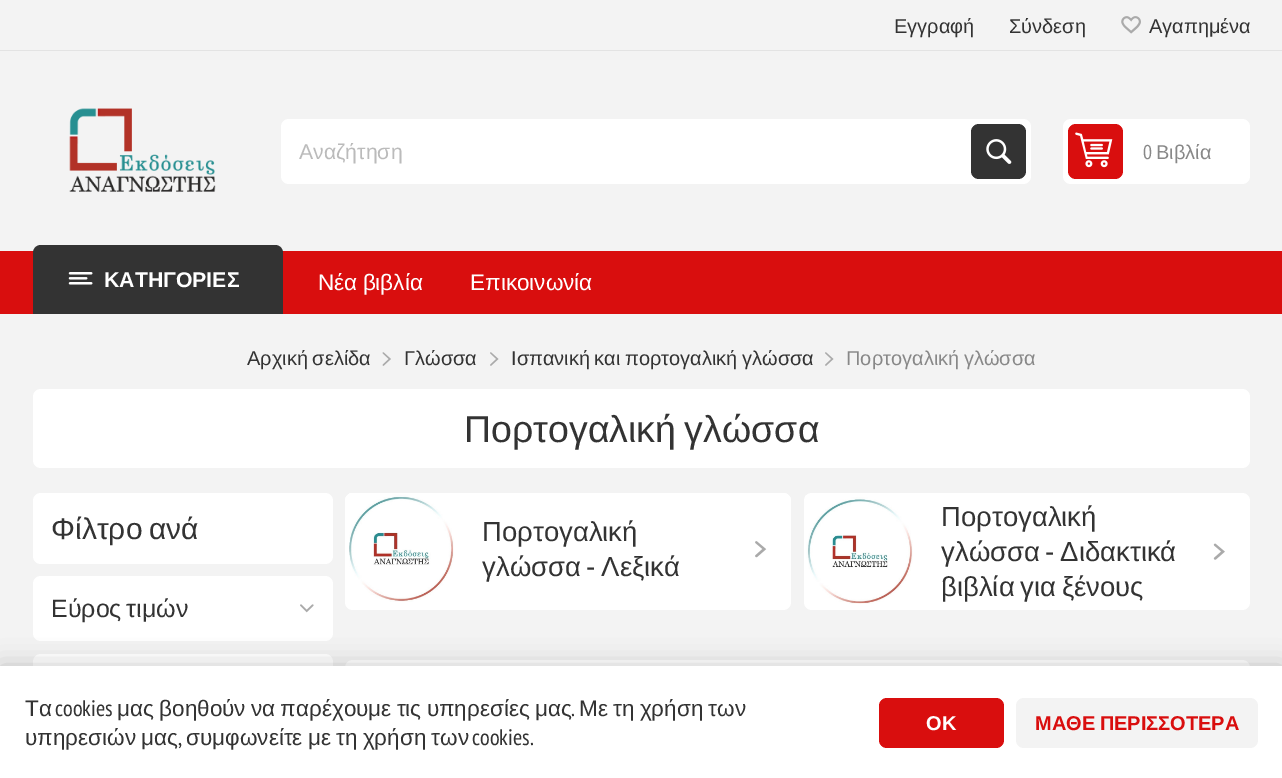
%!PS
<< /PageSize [1282 778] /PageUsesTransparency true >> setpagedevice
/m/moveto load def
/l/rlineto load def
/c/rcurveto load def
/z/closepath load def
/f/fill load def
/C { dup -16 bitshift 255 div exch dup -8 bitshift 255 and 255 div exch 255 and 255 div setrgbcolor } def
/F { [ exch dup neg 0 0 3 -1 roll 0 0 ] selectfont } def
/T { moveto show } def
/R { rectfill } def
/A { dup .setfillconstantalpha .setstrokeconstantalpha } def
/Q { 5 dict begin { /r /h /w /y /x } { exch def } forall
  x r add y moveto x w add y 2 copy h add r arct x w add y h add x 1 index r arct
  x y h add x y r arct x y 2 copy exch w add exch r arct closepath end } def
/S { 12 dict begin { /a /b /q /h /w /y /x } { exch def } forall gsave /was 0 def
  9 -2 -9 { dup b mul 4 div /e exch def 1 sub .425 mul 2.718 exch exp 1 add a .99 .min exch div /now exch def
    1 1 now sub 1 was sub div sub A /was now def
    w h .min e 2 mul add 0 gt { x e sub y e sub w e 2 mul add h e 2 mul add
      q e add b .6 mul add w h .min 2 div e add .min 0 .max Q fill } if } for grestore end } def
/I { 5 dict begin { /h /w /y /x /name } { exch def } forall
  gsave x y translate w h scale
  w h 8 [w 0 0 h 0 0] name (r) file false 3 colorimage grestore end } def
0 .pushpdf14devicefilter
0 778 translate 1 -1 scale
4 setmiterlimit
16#F3F3F3 C
0 0 1282 778 R
/LiberationSans-Regular 20 F
16#333333 C
(Εγγραφή) 894 33 T
(Σύνδεση) 1009 33 T
(1.rgb) 1121 16 20 18 I
(Αγαπημένα) 1149 33 T
16#E3E3E3 C
0 50 1282 1 R
(2.rgb) 69 108 147 84 I
16#FFFFFF C
281 119 750 65 8 Q f
/LiberationSans-Regular 21.25 F
16#BBBBBB C
(Αναζήτηση) 299 159 T
16#333333 C
971 124 55 55 8 Q f
(3.rgb) 986 139 26 25 I
16#FFFFFF C
1063 119 187 65 8 Q f
16#D90E0E C
1068 124 55 55 8 Q f
(4.rgb) 1075 132 38 36 I
/PTSansNarrow-Regular 20 F
16#888888 C
(0) 1143 159 T
/LiberationSans-Regular 20 F
(Βιβλία) 1156 159 T
16#D90E0E C
0 251 1282 63 R
16#333333 C
41 245 m 234 0 l 4.5 0 8 3.5 8 8 c 0 61 l -250 0 l 0 -61 l 0 -4.5 3.5 -8 8 -8 c z f
(5.rgb) 68 272 25 13 I
/LiberationSans-Bold 21.25 F
16#FFFFFF C
(ΚΑΤΗΓΟΡΙΕΣ) 104 287 T
/LiberationSans-Regular 22.5 F
318 290 m -1 0 32 (Νέα βιβλία) widthshow
(Επικοινωνία) 470 290 T
/LiberationSans-Regular 20 F
16#333333 C
247 365 m -1 0 32 (Αρχική σελίδα) widthshow
(6.rgb) 382 352 9 14 I
(Γλώσσα) 404 365 T
(7.rgb) 490 352 9 14 I
511 365 m -1 0 32 (Ισπανική και πορτογαλική γλώσσα) widthshow
(7.rgb) 825 352 9 14 I
16#888888 C
846 365 m -1 0 32 (Πορτογαλική γλώσσα) widthshow
16#FFFFFF C
33 493 300 71 8 Q f
/LiberationSans-Regular 30 F
16#333333 C
51 539 m -2 0 32 (Φίλτρο ανά) widthshow
16#FFFFFF C
33 576 300 65 8 Q f
/LiberationSans-Regular 25 F
16#333333 C
51 617 m -2 0 32 (Εύρος τιμών) widthshow
(8.rgb) 300 604 14 9 I
16#FFFFFF C
33 654 300 65 8 Q f
33 389 1217 79 8 Q f
/LiberationSans-Regular 37.5 F
16#333333 C
464 442 m -2 0 32 (Πορτογαλική γλώσσα) widthshow
16#FFFFFF C
345 493 446 117 8 Q f
345 493 446 112 8 Q f
(9.rgb) 349 493 105 109 I
/LiberationSans-Regular 27.5 F
16#333333 C
(Πορτογαλική) 482 541 T
(10.rgb) 755 541 12 17 I
482 576 m -2 0 32 (γλώσσα - Λεξικά) widthshow
16#FFFFFF C
804 493 446 117 8 Q f
(11.rgb) 805 495 108 109 I
16#333333 C
(Πορτογαλική) 941 526 T
941 561 m -2 0 32 (γλώσσα - Διδακτικά) widthshow
(12.rgb) 1213 543 12 17 I
941 596 m -2 0 32 (βιβλία για ξένους) widthshow
16#FFFFFF C
345 660 905 80 8 Q f
16#000000 C
0 666 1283 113 0 12.5 .2 S
16#FFFFFF C
0 666 1282 112 R
/LiberationSans-Regular 22.5 F
16#333333 C
(Τα) 25 716 T
/PTSansNarrow-Regular 22.5 F
(cookies) 55 716 T
/LiberationSans-Regular 22.5 F
117 716 m -1 0 32 (μας βοηθούν να παρέχουμε τις υπηρεσίες μας) widthshow
/PTSansNarrow-Regular 22.5 F
(.) 571 716 T
/LiberationSans-Regular 22.5 F
579 716 m -1 0 32 (Με τη χρήση των) widthshow
25 745 m -1 0 32 (υπηρεσιών μας) widthshow
/PTSansNarrow-Regular 22.5 F
(,) 178 745 T
/LiberationSans-Regular 22.5 F
186 745 m -1 0 32 (συμφωνείτε με τη χρήση των) widthshow
/PTSansNarrow-Regular 22.5 F
(cookies.) 472 745 T
16#D90E0E C
879 698 125 50 8 Q f
/LiberationSans-Bold 20 F
16#FFFFFF C
(ΟΚ) 926 730 T
16#F3F3F3 C
1016 698 242 50 8 Q f
16#D90E0E C
1035 730 m -1 0 32 (ΜΑΘΕ ΠΕΡΙΣΣΟΤΕΡΑ) widthshow
.poppdf14devicefilter showpage
